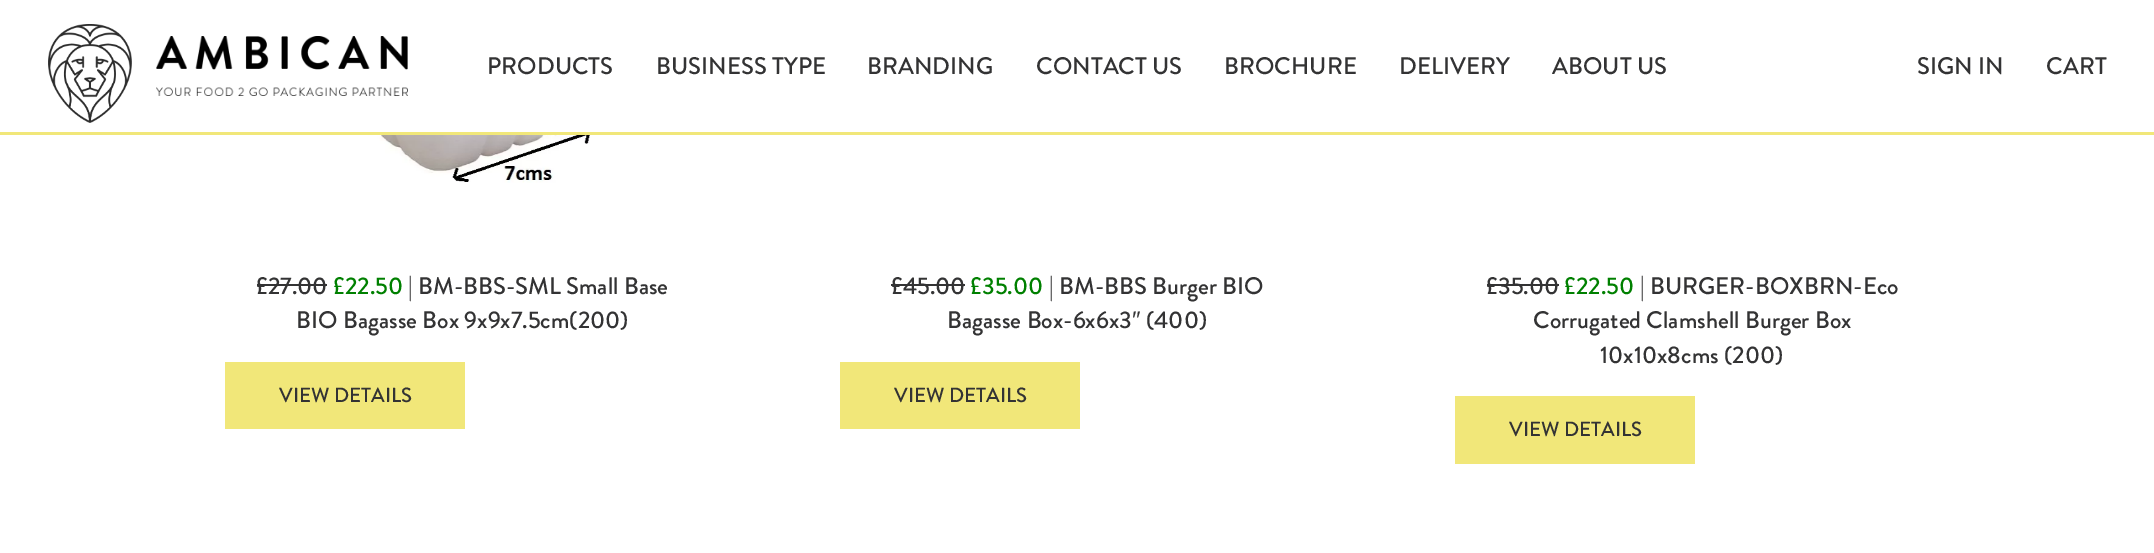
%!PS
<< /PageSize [2154 553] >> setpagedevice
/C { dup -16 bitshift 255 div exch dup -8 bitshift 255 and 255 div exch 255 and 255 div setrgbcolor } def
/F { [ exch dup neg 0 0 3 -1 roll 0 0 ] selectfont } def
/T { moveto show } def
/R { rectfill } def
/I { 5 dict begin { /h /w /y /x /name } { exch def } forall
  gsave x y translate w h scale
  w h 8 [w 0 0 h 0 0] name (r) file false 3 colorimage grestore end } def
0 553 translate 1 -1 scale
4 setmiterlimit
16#FFFFFF C
0 0 2154 553 R
16#F1E779 C
0 132 2154 3 R
(1.rgb) 48 24 84 99 I
(2.rgb) 156 36 252 60 I
/BrandonGrotesque-Medium 24 F
16#333334 C
(PRODUCTS) 487 74 T
(BUSINESS TYPE) 656 74 T
(BRANDING) 867 74 T
(CONTACT US) 1036 74 T
(BROCHURE) 1224 74 T
(DELIVERY) 1399 74 T
(ABOUT US) 1552 74 T
(SIGN IN) 1917 74 T
(CART) 2046 74 T
(3.rgb) 273 135 380 48 I
(£27.00) 256 294 T
257 284 70 2 R
16#008000 C
(£22.50) 333 294 T
16#333334 C
(| BM-BBS-SML Small Base) 408 294 T
(BIO Bagasse Box 9x9x7.5cm\(200\)) 296 328 T
16#F1E779 C
225 362 240 67 R
/BrandonGrotesque-Medium 20.5 F
16#333334 C
(VIEW DETAILS) 279 402 T
/BrandonGrotesque-Medium 24 F
(£45.00) 891 294 T
891 284 74 2 R
16#008000 C
(£35.00) 970 294 T
16#333334 C
(| BM-BBS Burger BIO) 1049 294 T
(Bagasse Box-6x6x3) 947 328 T
/LiberationSans-Regular 24 F
(″) 1132 328 T
/BrandonGrotesque-Medium 24 F
(\(400\)) 1146 328 T
16#F1E779 C
840 362 240 67 R
/BrandonGrotesque-Medium 20.5 F
16#333334 C
(VIEW DETAILS) 894 402 T
/BrandonGrotesque-Medium 24 F
(£35.00) 1486 294 T
1487 284 72 2 R
16#008000 C
(£22.50) 1564 294 T
16#333334 C
(| BURGER-BOXBRN-Eco) 1640 294 T
(Corrugated Clamshell Burger Box) 1533 328 T
(10x10x8cms \(200\)) 1600 363 T
16#F1E779 C
1455 396 240 68 R
/BrandonGrotesque-Medium 20.5 F
16#333334 C
(VIEW DETAILS) 1509 436 T
showpage
